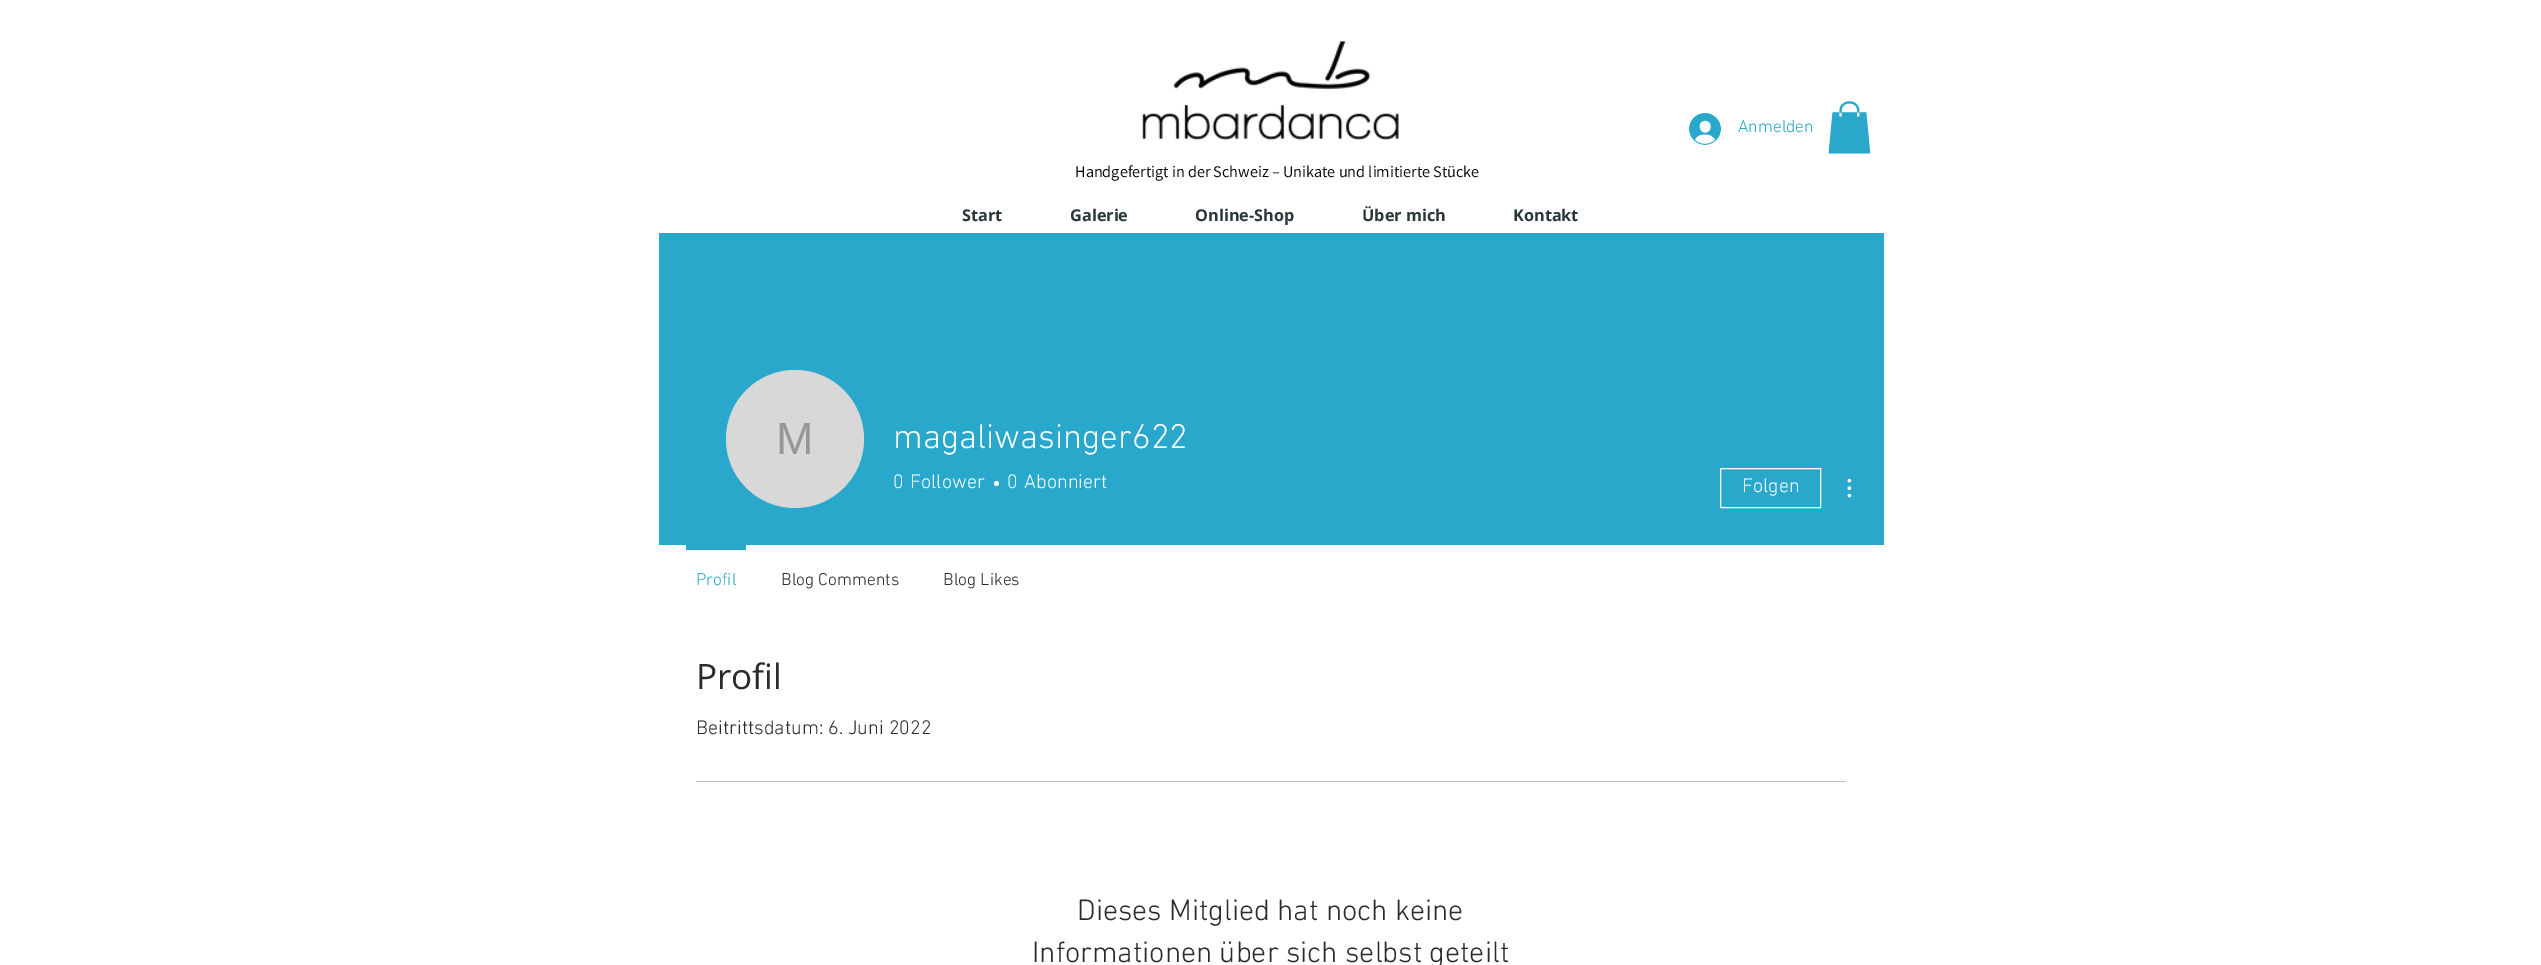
%!PS
<< /PageSize [2541 965] >> setpagedevice
/f/fill load def
/C { dup -16 bitshift 255 div exch dup -8 bitshift 255 and 255 div exch 255 and 255 div setrgbcolor } def
/F { [ exch dup neg 0 0 3 -1 roll 0 0 ] selectfont } def
/T { moveto show } def
/R { rectfill } def
/O { newpath 0 360 arc closepath } def
/I { 5 dict begin { /h /w /y /x /name } { exch def } forall
  gsave x y translate w h scale
  w h 8 [w 0 0 h 0 0] name (r) file false 3 colorimage grestore end } def
0 965 translate 1 -1 scale
4 setmiterlimit
16#FFFFFF C
0 0 2541 965 R
(1.rgb) 1142 41 257 100 I
(2.rgb) 1689 113 32 32 I
/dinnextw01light-Light 17.5 F
16#2AA8CC C
(Anmelden) 1738 132 T
(3.rgb) 1828 101 43 53 I
/Assistant-Regular 16.25 F
16#000000 C
(Handgefertigt in der Schweiz – Unikate und limitierte Stücke) 1075 177 T
/OpenSans-Bold 16.25 F
16#28373C C
(Start) 962 221 T
(Galerie) 1070 221 T
(Online-Shop) 1195 221 T
(Über mich) 1362 221 T
(Kontakt) 1513 221 T
16#2AA8CC C
659 233 1225 312 R
16#D8D8D8 C
795 439 69 O f
/LiberationSans-Regular 45 F
16#979797 C
(M) 776 454 T
/dinnextw01light-Light 35 F
16#FFFFFF C
(magaliwasinger622) 893 448 T
/dinnextw01light-Light 20 F
(0) 893 488 T
(Follower) 910 488 T
996.5 483.5 2.5 O f
(0) 1007 488 T
(Abonniert) 1024 488 T
1720.5 468.5 100 39 rectstroke
(Folgen) 1742 492 T
(4.rgb) 1847 478 5 20 I
16#2AA8CC C
686 545 60 5 R
/dinnextw01light-Light 17.5 F
(Profil) 696 585 T
16#2A2A2A C
(Blog Comments) 781 585 T
(Blog Likes) 943 585 T
/OpenSans-Regular 35 F
(Profil) 696 689 T
/dinnextw01light-Light 20 F
(Beitrittsdatum: 6. Juni 2022) 696 734 T
16#BFBFBF C
696 781 1150 1 R
/dinnextw01light-Light 30 F
16#2A2A2A C
(Dieses Mitglied hat noch keine) 1077 920 T
(Informationen über sich selbst geteilt) 1032 962 T
showpage
